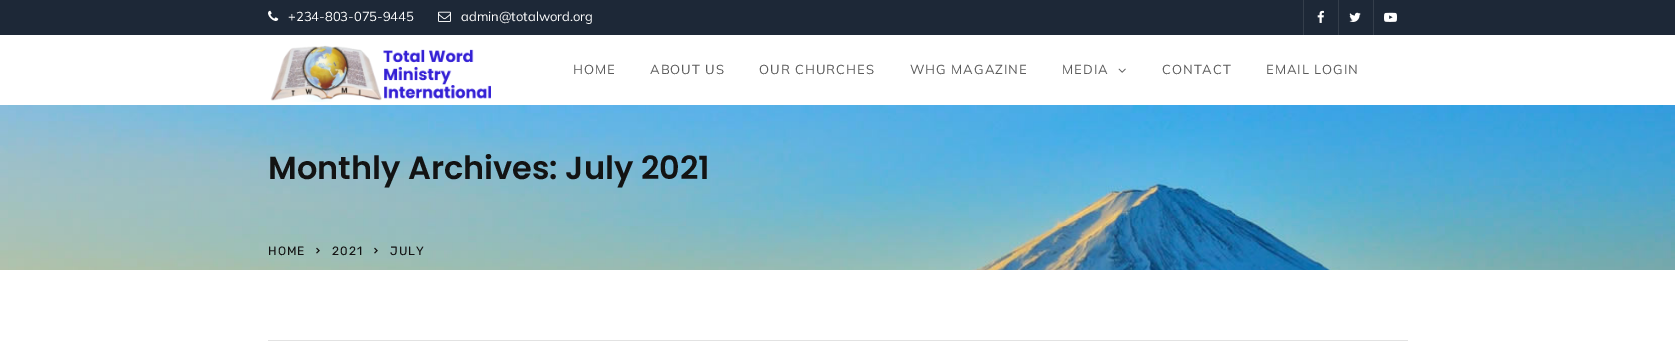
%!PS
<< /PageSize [1675 355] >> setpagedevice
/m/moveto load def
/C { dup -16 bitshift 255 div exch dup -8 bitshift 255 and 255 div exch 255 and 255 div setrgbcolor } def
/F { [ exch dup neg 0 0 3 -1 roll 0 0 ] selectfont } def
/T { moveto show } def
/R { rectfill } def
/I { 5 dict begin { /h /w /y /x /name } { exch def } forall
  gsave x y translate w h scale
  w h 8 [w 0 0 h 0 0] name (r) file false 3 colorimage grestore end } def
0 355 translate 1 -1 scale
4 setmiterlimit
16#FFFFFF C
0 0 1675 355 R
16#1D2837 C
0 0 1675 35 R
(1.rgb) 268 10 11 11 I
/Mulish-Regular 13 F
16#FFFFFF C
(+234-803-075-9445) 288 21 T
(2.rgb) 438 11 13 11 I
(admin@totalword.org) 461 21 T
16#343E4B C
1303 0 1 35 R
(3.rgb) 1317 10 7 13 I
1338 0 1 35 R
(4.rgb) 1349 12 12 10 I
1373 0 1 35 R
(5.rgb) 1384 12 13 10 I
(6.rgb) 270 45 221 57 I
16#5B5B5B C
573 74 m 1 0 (HOME) ashow
650 74 m 1 0 (ABOUT US) ashow
759 74 m 1 0 (OUR CHURCHES) ashow
910 74 m 1 0 (WHG MAGAZINE) ashow
1062 74 m 1 0 (MEDIA) ashow
(7.rgb) 1118 68 8 5 I
1162 74 m 1 0 (CONTACT) ashow
1266 74 m 1 0 (EMAIL LOGIN) ashow
(8.rgb) 0 105 1675 165 I
/Poppins-SemiBold 32 F
16#131313 C
(Monthly Archives: July 2021) 268 179 T
/Rubik-Light 12 F
268 255 m 1 0 (HOME) ashow
(9.rgb) 316 247 4 7 I
332 255 m 1 0 (2021) ashow
(10.rgb) 374 247 4 7 I
390 255 m 1 0 (JULY) ashow
16#E2E2E2 C
268 340 1140 1 R
showpage
